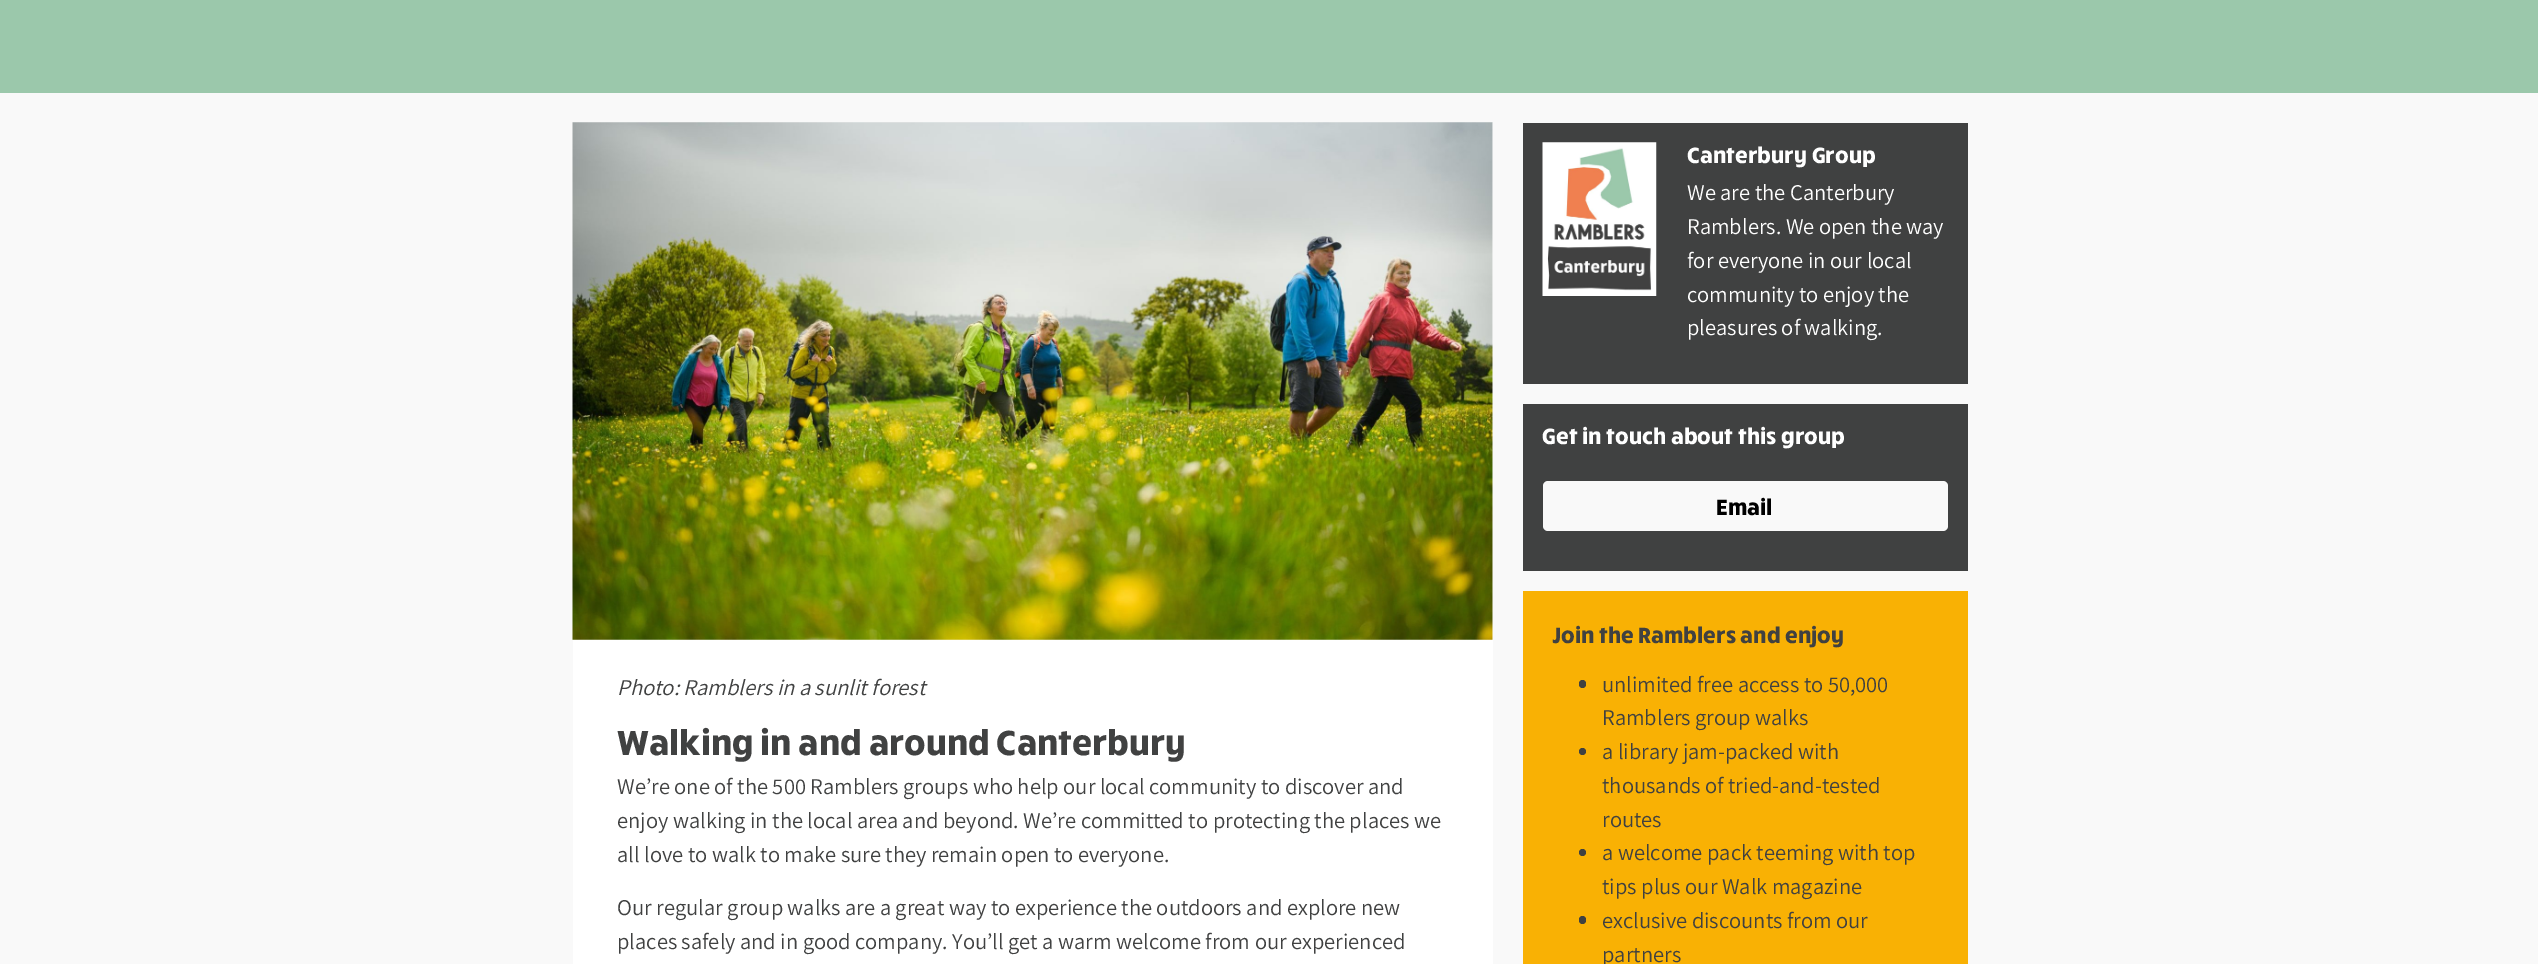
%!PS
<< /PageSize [2538 964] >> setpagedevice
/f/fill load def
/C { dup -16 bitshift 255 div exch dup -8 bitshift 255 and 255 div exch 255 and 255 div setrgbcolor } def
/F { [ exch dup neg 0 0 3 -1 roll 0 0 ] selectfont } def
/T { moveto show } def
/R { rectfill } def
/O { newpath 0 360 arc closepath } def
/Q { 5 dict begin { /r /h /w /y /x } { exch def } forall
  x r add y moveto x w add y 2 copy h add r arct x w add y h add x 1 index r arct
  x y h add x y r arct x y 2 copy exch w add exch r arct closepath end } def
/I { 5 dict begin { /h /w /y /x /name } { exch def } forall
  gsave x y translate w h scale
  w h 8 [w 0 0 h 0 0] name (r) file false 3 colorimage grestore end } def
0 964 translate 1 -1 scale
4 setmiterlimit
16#F9F9F9 C
0 0 2538 964 R
16#9BC8AB C
0 0 2538 93 R
16#FFFFFF C
573 123 920 841 R
(1.rgb) 572 122 921 518 I
/Assistant-ExtraLightItalic 22.5 F
16#404141 C
(Photo: Ramblers in a sunlit forest) 617 695 T
/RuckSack-Bold 35.5 F
(Walking in and around Canterbury) 617 755 T
/Assistant-ExtraLight 22.5 F
(We’re one of the 500 Ramblers groups who help our local community to discover and) 617 794 T
(enjoy walking in the local area and beyond. We’re committed to protecting the places we) 617 828 T
(all love to walk to make sure they remain open to everyone.) 617 862 T
(Our regular group walks are a great way to experience the outdoors and explore new) 617 915 T
(places safely and in good company. You’ll get a warm welcome from our experienced) 617 949 T
1523 123 445 261 R
(2.rgb) 1542 142 115 154 I
/RuckSack-Bold 22.5 F
16#FFFFFF C
(Canterbury Group) 1687 163 T
/Assistant-ExtraLight 22.5 F
(We are the Canterbury) 1687 200 T
(Ramblers. We open the way) 1687 234 T
(for everyone in our local) 1687 268 T
(community to enjoy the) 1687 302 T
(pleasures of walking.) 1687 335 T
16#404141 C
1523 404 445 167 R
/RuckSack-Bold 22.5 F
16#FFFFFF C
(Get in touch about this group) 1542 444 T
16#F9F9F9 C
1543 481 405 50 5 Q f
16#000000 C
(Email) 1716 515 T
16#F9B104 C
1523 591 445 373 R
16#404141 C
(Join the Ramblers and enjoy) 1552 643 T
1579 680 7 8 3.5 Q f
/Assistant-ExtraLight 22.5 F
(unlimited free access to 50,000) 1602 692 T
(Ramblers group walks) 1602 725 T
1582.5 751.5 3.5 O f
(a library jam-packed with) 1602 759 T
(thousands of tried-and-tested) 1602 793 T
(routes) 1602 827 T
1582.5 852.5 3.5 O f
(a welcome pack teeming with top) 1602 860 T
(tips plus our Walk magazine) 1602 894 T
1579 916 7 8 3.5 Q f
(exclusive discounts from our) 1602 928 T
(partners) 1602 962 T
showpage
